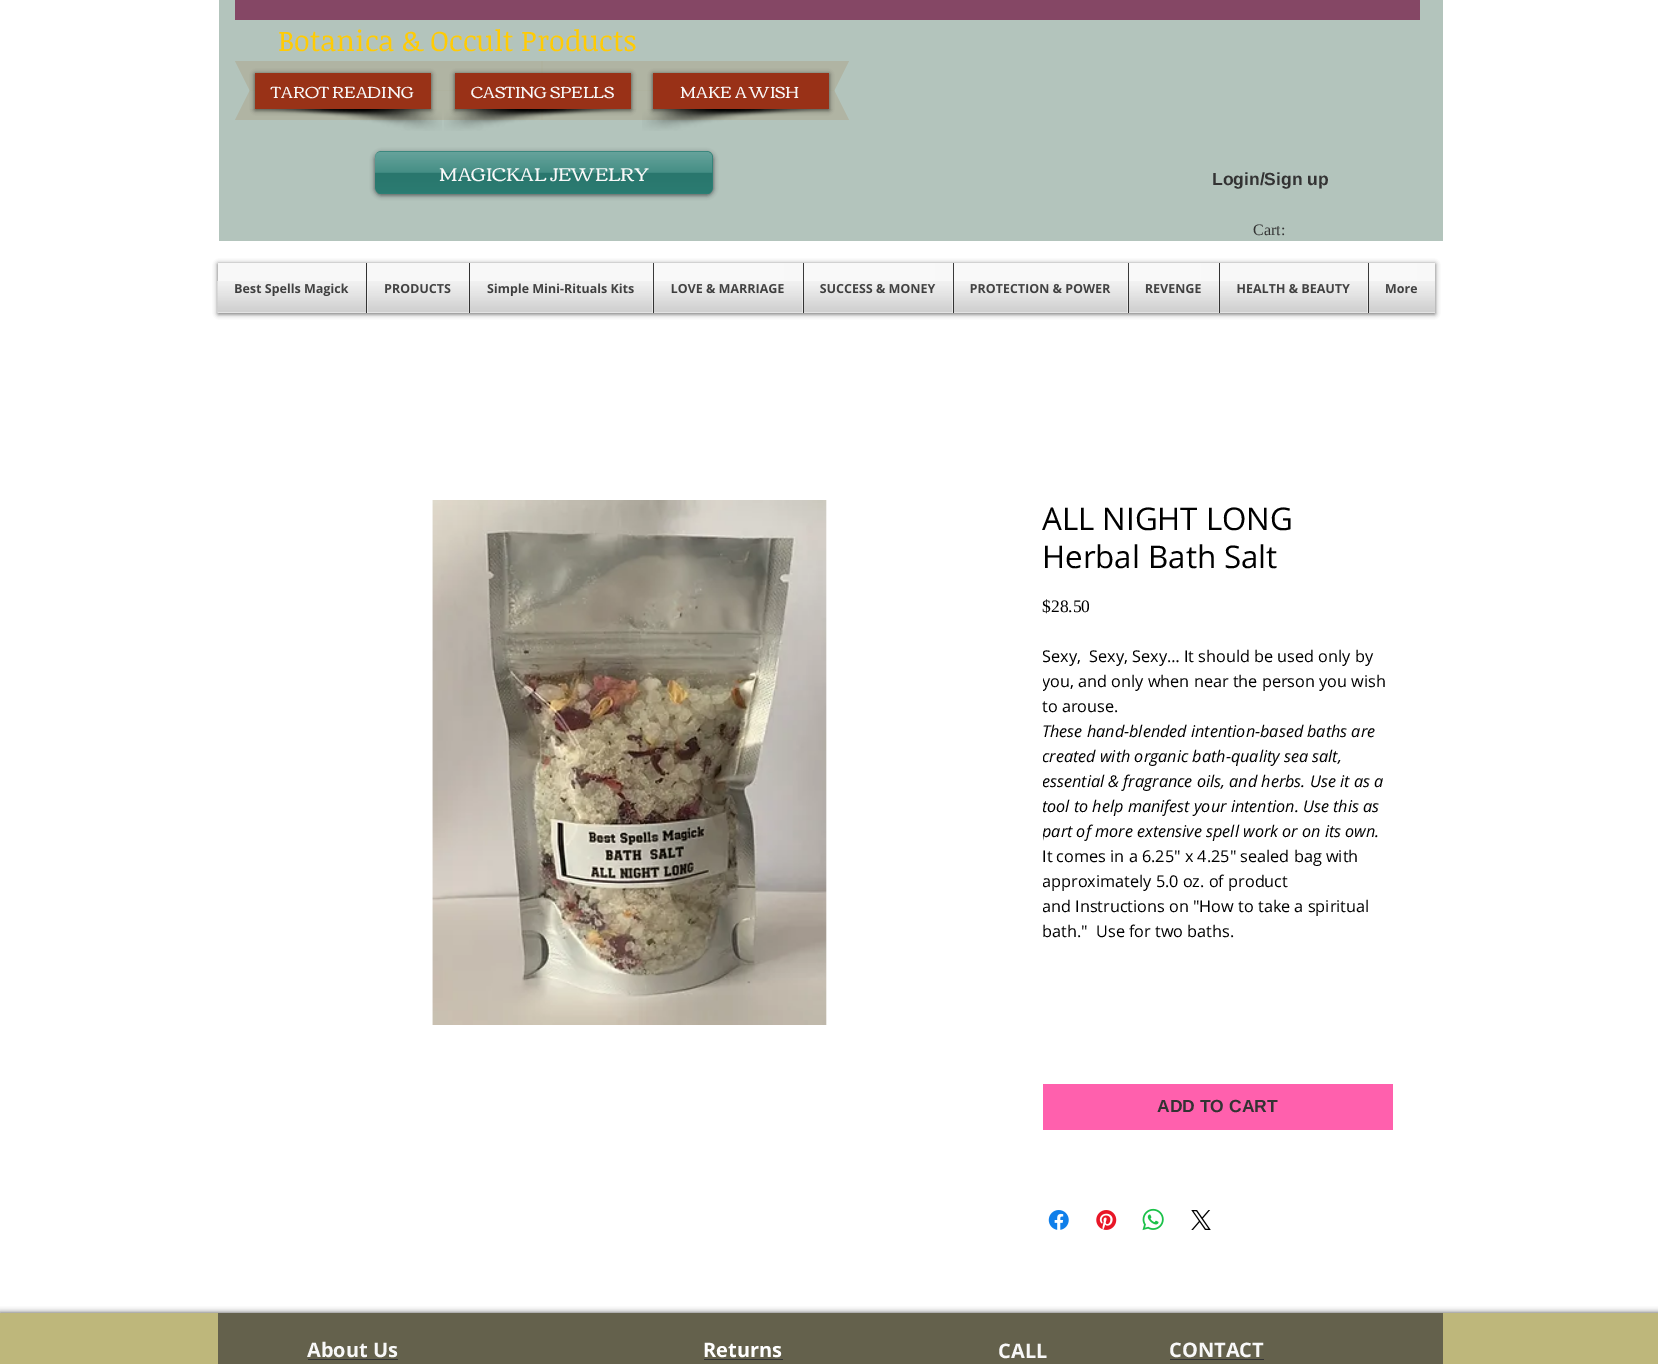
%!PS
<< /PageSize [1658 1364] /PageUsesTransparency true >> setpagedevice
/m/moveto load def
/l/rlineto load def
/z/closepath load def
/f/fill load def
/q/gsave load def
/Q_/grestore load def
/C { dup -16 bitshift 255 div exch dup -8 bitshift 255 and 255 div exch 255 and 255 div setrgbcolor } def
/F { [ exch dup neg 0 0 3 -1 roll 0 0 ] selectfont } def
/T { moveto show } def
/R { rectfill } def
/A { dup .setfillconstantalpha .setstrokeconstantalpha } def
/Q { 5 dict begin { /r /h /w /y /x } { exch def } forall
  x r add y moveto x w add y 2 copy h add r arct x w add y h add x 1 index r arct
  x y h add x y r arct x y 2 copy exch w add exch r arct closepath end } def
/S { 12 dict begin { /a /b /q /h /w /y /x } { exch def } forall gsave /was 0 def
  9 -2 -9 { dup b mul 4 div /e exch def 1 sub .425 mul 2.718 exch exp 1 add a .99 .min exch div /now exch def
    1 1 now sub 1 was sub div sub A /was now def
    w h .min e 2 mul add 0 gt { x e sub y e sub w e 2 mul add h e 2 mul add
      q e add b .6 mul add w h .min 2 div e add .min 0 .max Q fill } if } for grestore end } def
/I { 5 dict begin { /h /w /y /x /name } { exch def } forall
  gsave x y translate w h scale
  w h 8 [w 0 0 h 0 0] name (r) file false 3 colorimage grestore end } def
0 .pushpdf14devicefilter
0 1364 translate 1 -1 scale
4 setmiterlimit
16#FFFFFF C
0 0 1658 1364 R
16#B3C4BC C
219 0 1224 241 R
16#854765 C
235 0 1185 20 R
/NoticiaText-Regular 28.75 F
16#FFCB05 C
(Botanica & Occult Products) 278 51 T
q
235 61 308 30 rectclip
16#B0B4A3 C
235 61 m 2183 0 l -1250 1250 l -308 0 l z f
Q_
q
541 61 308 30 rectclip
0.83 A
16#AFB19E C
-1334 61 m 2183 0 l -625 1250 l -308 0 l z f
Q_
q
235 90 308 30 rectclip
0.83 A
16#AFB19E C
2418 120 m -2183 0 l 625 -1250 l 308 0 l z f
Q_
q
541 90 308 30 rectclip
0.83 A
16#AFB19E C
849 120 m -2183 0 l 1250 -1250 l 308 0 l z f
Q_
(1.rgb) 250 109 192 22 I
16#000000 C
255 74 176 36 0 2.5 .6 S
16#993217 C
255 73 176 36 R
/Corben-Regular 16.25 F
16#F8F8F8 C
(TAROT READING) 271 98 T
(2.rgb) 444 109 192 22 I
16#000000 C
455 74 176 36 0 2.5 .6 S
16#993117 C
455 73 176 36 R
16#F8F8F8 C
(CASTING SPELLS) 471 98 T
(3.rgb) 642 109 191 22 I
16#000000 C
653 74 176 36 0 2.5 .6 S
16#993117 C
653 73 176 36 R
16#F8F8F8 C
(MAKE A WISH) 680 98 T
16#000000 C
375 153 338 42 6 2.5 .6 S
16#2C7F75 C
375 151 338 43 6 Q f
(4.rgb) 375 151 338 42 I
/Corben-Regular 18.75 F
16#F8F8F8 C
(MAGICKAL JEWELRY) 439 181 T
/LiberationSans-Bold 17.5 F
16#333333 C
(Login/Sign up) 1212 185 T
/LiberationSerif-Regular 16 F
(Cart:) 1253 235 T
16#000000 C
218 264 1217 50 0 2.5 .6 S
(5.rgb) 217 296 1 16 I
16#F8F8F8 C
218 263 148 50 R
/OpenSans-Bold 12.5 F
16#333333 C
(Best Spells Magick) 234 293 T
(6.rgb) 235 283 113 13 I
(7.rgb) 217 281 149 32 I
16#F8F8F8 C
367 263 102 50 R
16#333333 C
366 263 1 50 R
(PRODUCTS) 384 293 T
(8.rgb) 385 284 66 9 I
(9.rgb) 367 281 102 32 I
16#F8F8F8 C
470 263 183 50 R
16#333333 C
469 263 1 50 R
(Simple Mini-Rituals Kits) 487 293 T
(10.rgb) 487 283 147 13 I
(11.rgb) 470 281 183 32 I
16#F8F8F8 C
654 263 149 50 R
16#333333 C
653 263 1 50 R
(LOVE & MARRIAGE) 671 293 T
(12.rgb) 653 263 131 30 I
(13.rgb) 654 281 149 32 I
16#F8F8F8 C
804 263 149 50 R
16#333333 C
803 263 1 50 R
(SUCCESS & MONEY) 820 293 T
(14.rgb) 803 263 132 30 I
(15.rgb) 804 281 149 32 I
16#F8F8F8 C
954 263 174 50 R
16#333333 C
953 263 1 50 R
(PROTECTION & POWER) 970 293 T
(16.rgb) 953 263 157 30 I
(17.rgb) 954 281 174 32 I
16#F8F8F8 C
1129 263 90 50 R
16#333333 C
1128 263 1 50 R
(REVENGE) 1145 293 T
(18.rgb) 1128 263 73 30 I
(19.rgb) 1129 281 90 32 I
16#F8F8F8 C
1220 263 148 50 R
16#333333 C
1219 263 1 50 R
(HEALTH & BEAUTY) 1236 293 T
(20.rgb) 1237 284 113 9 I
(21.rgb) 1220 281 148 32 I
16#F8F8F8 C
1369 263 66 50 R
16#333333 C
1368 263 1 50 R
(More) 1385 293 T
(22.rgb) 1368 263 49 30 I
(23.rgb) 1369 281 66 32 I
(24.rgb) 432 500 395 525 I
/OpenSans-Regular 31.25 F
16#000000 C
(ALL NIGHT LONG) 1042 530 T
(Herbal Bath Salt) 1042 568 T
/LiberationSerif-Regular 17.5 F
($28.50) 1042 612 T
q
1043 644 350 400 rectclip
/OpenSans-Regular 16.25 F
(Sexy,  Sexy, Sexy… It should be used only by) 1042 662 T
(you, and only when near the person you wish) 1042 687 T
Q_
/OpenSans-Regular 16.25 F
(to arouse.) 1042 712 T
/OpenSans-Italic 16.25 F
(These hand-blended intention-based baths are) 1042 737 T
q
1043 644 350 400 rectclip
(created with organic bath-quality sea salt,) 1042 762 T
(essential & fragrance oils, and herbs. Use it as a) 1042 787 T
(tool to help manifest your intention. Use this as) 1042 812 T
(part of more extensive spell work or on its own.) 1042 837 T
Q_
/OpenSans-Regular 16.25 F
(It comes in a 6.25" x 4.25" sealed bag with) 1042 862 T
q
1043 644 350 400 rectclip
(approximately 5.0 oz. of product) 1042 887 T
(and) 1042 912 T
Q_
(Instructions on "How to take a spiritual) 1075 912 T
(bath."  Use for two baths.) 1042 937 T
16#FF60AD C
1043 1084 350 46 R
/LiberationSans-Bold 17.5 F
16#333333 C
(ADD TO CART) 1157 1112 T
(25.rgb) 1048 1210 21 20 I
(26.rgb) 1096 1210 21 20 I
(27.rgb) 1142 1208 22 23 I
(28.rgb) 1191 1210 20 20 I
16#000000 C
0 1313 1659 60 0 3 .7 S
16#BEB77B C
0 1313 1658 51 R
16#64614C C
218 1313 1225 51 R
/OpenSans-Bold 20 F
16#F8F8F8 C
(About Us) 307 1357 T
16#333333 C
308 1359 90 1 R
16#FFFFFF C
(Returns) 703 1357 T
16#333333 C
704 1359 79 1 R
16#F8F8F8 C
(CALL) 998 1358 T
(CONTACT) 1169 1357 T
16#333333 C
1170 1359 94 1 R
.poppdf14devicefilter showpage
